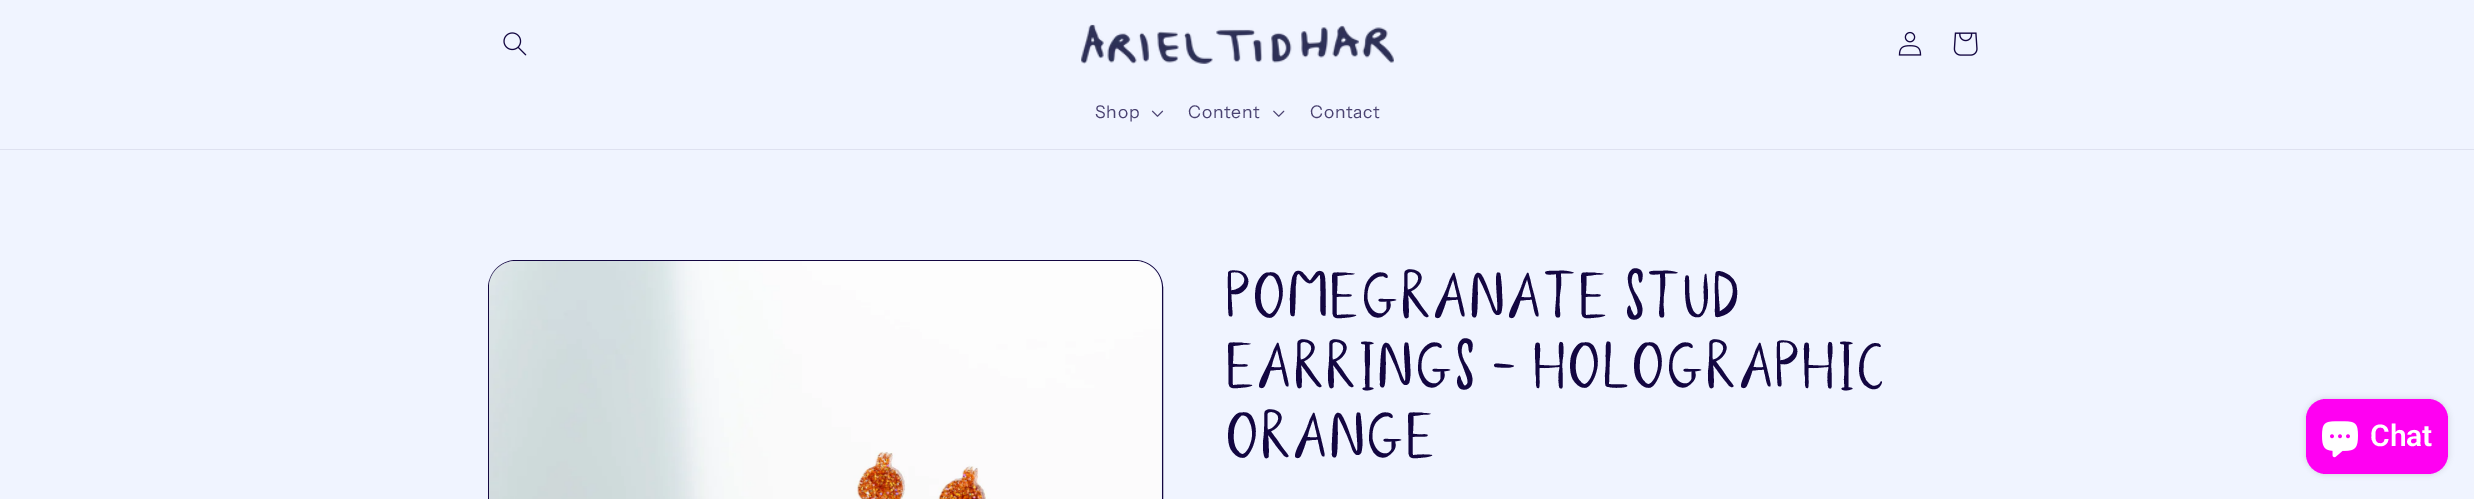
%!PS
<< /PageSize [2474 499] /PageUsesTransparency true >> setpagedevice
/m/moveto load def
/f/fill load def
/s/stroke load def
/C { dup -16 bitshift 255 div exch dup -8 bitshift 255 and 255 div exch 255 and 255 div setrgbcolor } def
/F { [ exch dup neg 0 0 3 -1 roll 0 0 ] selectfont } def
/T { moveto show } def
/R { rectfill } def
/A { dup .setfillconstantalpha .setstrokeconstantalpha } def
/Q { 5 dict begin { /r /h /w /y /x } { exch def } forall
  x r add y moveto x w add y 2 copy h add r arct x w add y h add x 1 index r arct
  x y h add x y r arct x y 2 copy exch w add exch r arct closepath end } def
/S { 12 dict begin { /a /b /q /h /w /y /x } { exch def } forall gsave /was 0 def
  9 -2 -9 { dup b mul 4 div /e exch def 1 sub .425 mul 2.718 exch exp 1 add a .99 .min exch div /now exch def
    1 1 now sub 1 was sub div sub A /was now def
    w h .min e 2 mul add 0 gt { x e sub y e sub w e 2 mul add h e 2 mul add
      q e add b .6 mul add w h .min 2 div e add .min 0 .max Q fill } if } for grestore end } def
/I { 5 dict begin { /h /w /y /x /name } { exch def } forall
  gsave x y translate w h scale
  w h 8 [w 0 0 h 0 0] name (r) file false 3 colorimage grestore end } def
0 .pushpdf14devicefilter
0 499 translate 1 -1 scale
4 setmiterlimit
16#F0F4FF C
0 0 2474 499 R
16#DEE1F0 C
0 149 2474 1 R
(1.rgb) 503 32 24 24 I
(2.rgb) 1081 24 313 40 I
(3.rgb) 1898 31 24 25 I
(4.rgb) 1953 32 25 24 I
/InstrumentSans-Regular 17.5 F
16#4A4271 C
1095 118 m .75 0 (Shop) ashow
(5.rgb) 1151 110 13 7 I
1188 118 m .75 0 (Content) ashow
(6.rgb) 1273 110 12 7 I
1310 118 m .75 0 (Contact) ashow
16#130641 C
488.5 260.5 674 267 27.5 Q s
(7.rgb) 489 261 673 238 I
/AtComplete-Regular 55 F
1225 311 m .8 0 (Pomegranate Stud) ashow
1225 381 m .8 0 (Earrings - Holographic) ashow
1225 451 m .8 0 (Orange) ashow
16#000000 C
2306 399 142 75 20 3 .15 S
16#FF00F2 C
2306 399 142 75 20 Q f
(8.rgb) 2322 421 36 37 I
/Roboto-SemiBold 30 F
16#FFFFFF C
(Chat) 2370 446 T
.poppdf14devicefilter showpage
